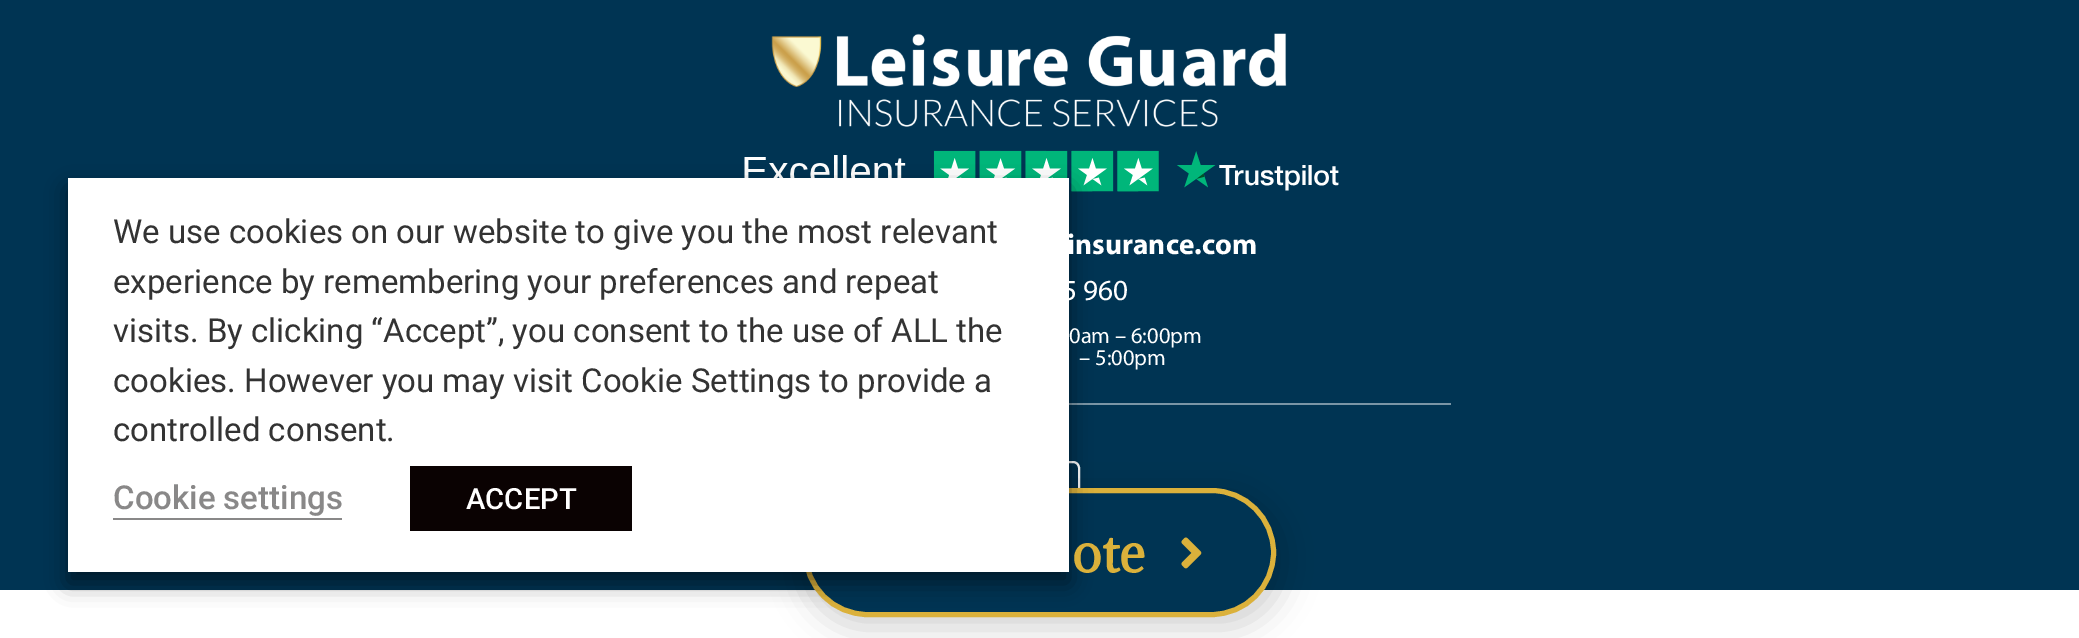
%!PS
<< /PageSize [2079 638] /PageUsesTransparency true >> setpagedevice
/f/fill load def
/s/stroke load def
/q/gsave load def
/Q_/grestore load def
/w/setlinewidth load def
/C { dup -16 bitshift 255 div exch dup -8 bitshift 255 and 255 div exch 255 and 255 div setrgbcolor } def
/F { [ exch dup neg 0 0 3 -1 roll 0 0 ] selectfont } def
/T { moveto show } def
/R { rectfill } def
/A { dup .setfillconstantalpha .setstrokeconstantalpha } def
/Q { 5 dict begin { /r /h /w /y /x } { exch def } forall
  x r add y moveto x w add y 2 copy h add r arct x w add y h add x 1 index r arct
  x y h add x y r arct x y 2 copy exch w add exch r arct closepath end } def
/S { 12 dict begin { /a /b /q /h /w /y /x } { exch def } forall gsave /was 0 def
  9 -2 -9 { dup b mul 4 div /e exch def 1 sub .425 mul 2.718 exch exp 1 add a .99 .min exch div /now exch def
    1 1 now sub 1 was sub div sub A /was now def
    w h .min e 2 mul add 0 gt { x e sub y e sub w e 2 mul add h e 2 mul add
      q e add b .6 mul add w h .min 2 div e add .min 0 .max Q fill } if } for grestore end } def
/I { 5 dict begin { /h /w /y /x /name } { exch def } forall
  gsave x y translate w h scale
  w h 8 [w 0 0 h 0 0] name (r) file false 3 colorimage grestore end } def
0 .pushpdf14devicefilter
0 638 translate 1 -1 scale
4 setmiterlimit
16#FFFFFF C
0 0 2079 638 R
16#003453 C
0 0 2079 590 R
16#7A95A6 C
1069 403 382 2 R
(2.rgb) 744 150 595 42 I
16#00314F C
1000 462 79 82 6 Q q f Q_
16#FFFFFF C
2 w
s
16#000000 C
803 491 482 137 68.5 17 .18 S
16#003453 C
805.5 490.5 468 124 62 Q q f Q_
16#DBB13B C
5 w
s
16#000000 C
68 189 1001 394 0 11 .5 S
16#FFFFFF C
68 178 1001 394 R
/Roboto-Regular 33 F
16#333333 C
(We use cookies on our website to give you the most relevant) 113 243 T
(experience by remembering your preferences and repeat) 113 293 T
(visits. By clicking “Accept”, you consent to the use of ALL the) 113 342 T
(cookies. However you may visit Cookie Settings to provide a) 113 392 T
(controlled consent.) 113 441 T
/Roboto-Medium 33 F
16#898888 C
(Cookie settings) 113 509 T
113 518 229 2 R
16#0A0202 C
410 466 222 65 R
/Roboto-Medium 29.25 F
16#FFFFFF C
(ACCEPT) 466 509 T
(1.rgb) 771 33 516 94 I
/Myriad-Bold 29.25 F
(insurance.com) 1067 254 T
/Myriad-Regular 29.25 F
(5 960) 1062 300 T
/Myriad-Regular 22.5 F
(0am – 6:00pm) 1069 343 T
(– 5:00pm) 1079 365 T
/Adamina-Bold 50 F
16#DBB13B C
(ote) 1072 572 T
(3.rgb) 1181 537 21 32 I
.poppdf14devicefilter showpage
